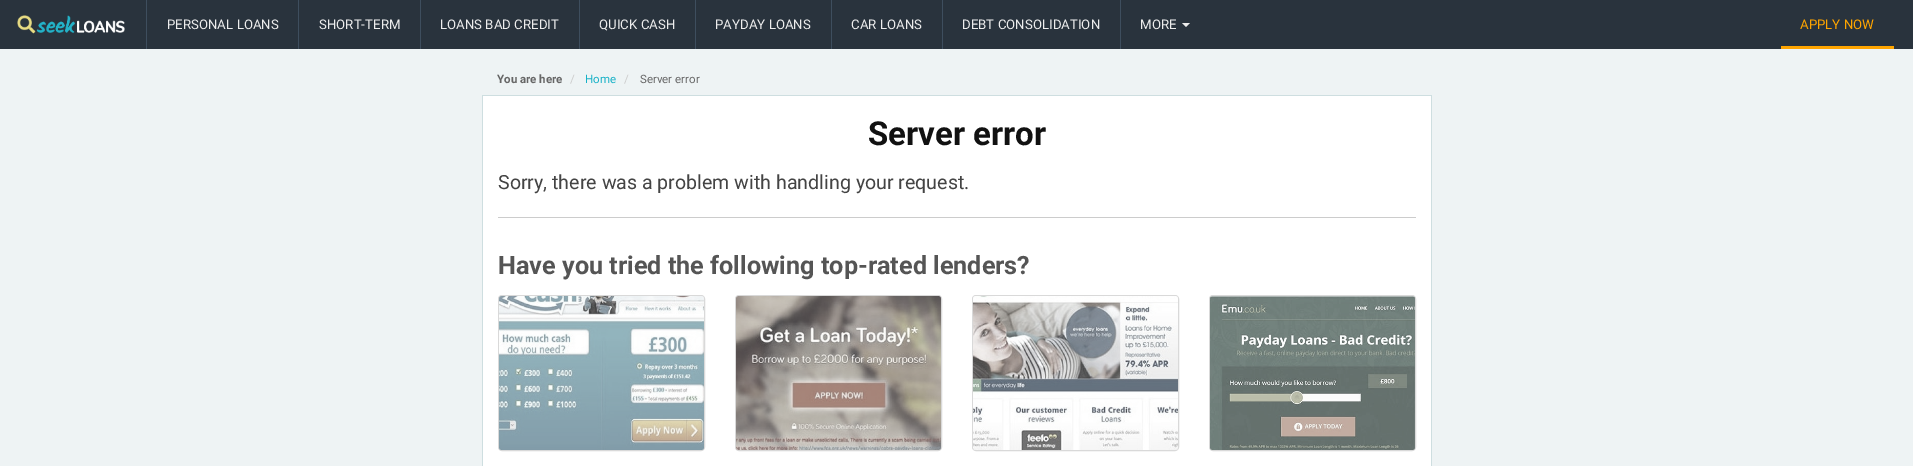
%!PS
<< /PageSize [1913 466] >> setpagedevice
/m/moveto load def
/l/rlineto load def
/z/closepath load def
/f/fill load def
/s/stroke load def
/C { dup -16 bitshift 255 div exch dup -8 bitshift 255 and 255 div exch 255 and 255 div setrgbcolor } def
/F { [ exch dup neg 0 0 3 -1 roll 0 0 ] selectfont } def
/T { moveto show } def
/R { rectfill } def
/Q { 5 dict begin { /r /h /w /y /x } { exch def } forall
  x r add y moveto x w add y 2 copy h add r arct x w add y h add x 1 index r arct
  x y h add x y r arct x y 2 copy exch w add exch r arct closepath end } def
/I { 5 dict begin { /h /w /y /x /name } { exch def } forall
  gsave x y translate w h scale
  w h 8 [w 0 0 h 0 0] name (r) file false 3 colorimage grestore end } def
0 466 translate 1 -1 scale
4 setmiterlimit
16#EEF3F4 C
0 0 1913 466 R
16#29333D C
0 0 1913 49 R
(1.rgb) 17 15 108 19 I
16#3E4E5E C
298 0 1 49 R
146 0 1 49 R
/Roboto-Regular 13.25 F
16#EDEDED C
(PERSONAL LOANS) 167 29 T
16#3E4E5E C
420 0 1 49 R
16#EDEDED C
(SHORT-TERM) 319 29 T
16#3E4E5E C
579 0 1 49 R
16#EDEDED C
(LOANS BAD CREDIT) 440 29 T
16#3E4E5E C
695 0 1 49 R
16#EDEDED C
(QUICK CASH) 599 29 T
16#3E4E5E C
831 0 1 49 R
16#EDEDED C
(PAYDAY LOANS) 715 29 T
16#3E4E5E C
942 0 1 49 R
16#EDEDED C
(CAR LOANS) 851 29 T
16#3E4E5E C
1120 0 1 49 R
16#EDEDED C
(DEBT CONSOLIDATION) 962 29 T
(MORE) 1140 29 T
1182 23 m 8 0 l -4 4 l z f
16#FFA500 C
1781 46 113 3 R
(APPLY NOW) 1800 29 T
/Roboto-Bold 11.5 F
16#666666 C
(You are here) 497 83 T
/Roboto-Regular 11.5 F
16#CCCCCC C
(/) 570 83 T
16#15B1C7 C
(Home) 585 83 T
16#CCCCCC C
(/) 624 83 T
16#666666 C
(Server error) 640 83 T
16#FFFFFF C
483 96 948 370 R
16#CEDEE0 C
482 95 950 1 R
1431 95 1 371 R
482 95 1 371 R
/Roboto-Bold 33 F
16#111111 C
(Server error) 868 145 T
16#CCCCCC C
498 217 918 1 R
/Roboto-Regular 19.6 F
16#444444 C
(Sorry, there was a problem with handling your request.) 498 189 T
/Roboto-Bold 25.2 F
16#555555 C
(Have you tried the following top-rated lenders?) 498 274 T
16#D9D9D9 C
498.5 295.5 206 155 3.5 Q s
(2.rgb) 499 296 205 154 I
735.5 295.5 206 155 3.5 Q s
(3.rgb) 736 296 205 154 I
972.5 295.5 206 155 3.5 Q s
(4.rgb) 973 296 205 154 I
1209.5 295.5 206 155 3.5 Q s
(5.rgb) 1210 296 205 154 I
showpage
